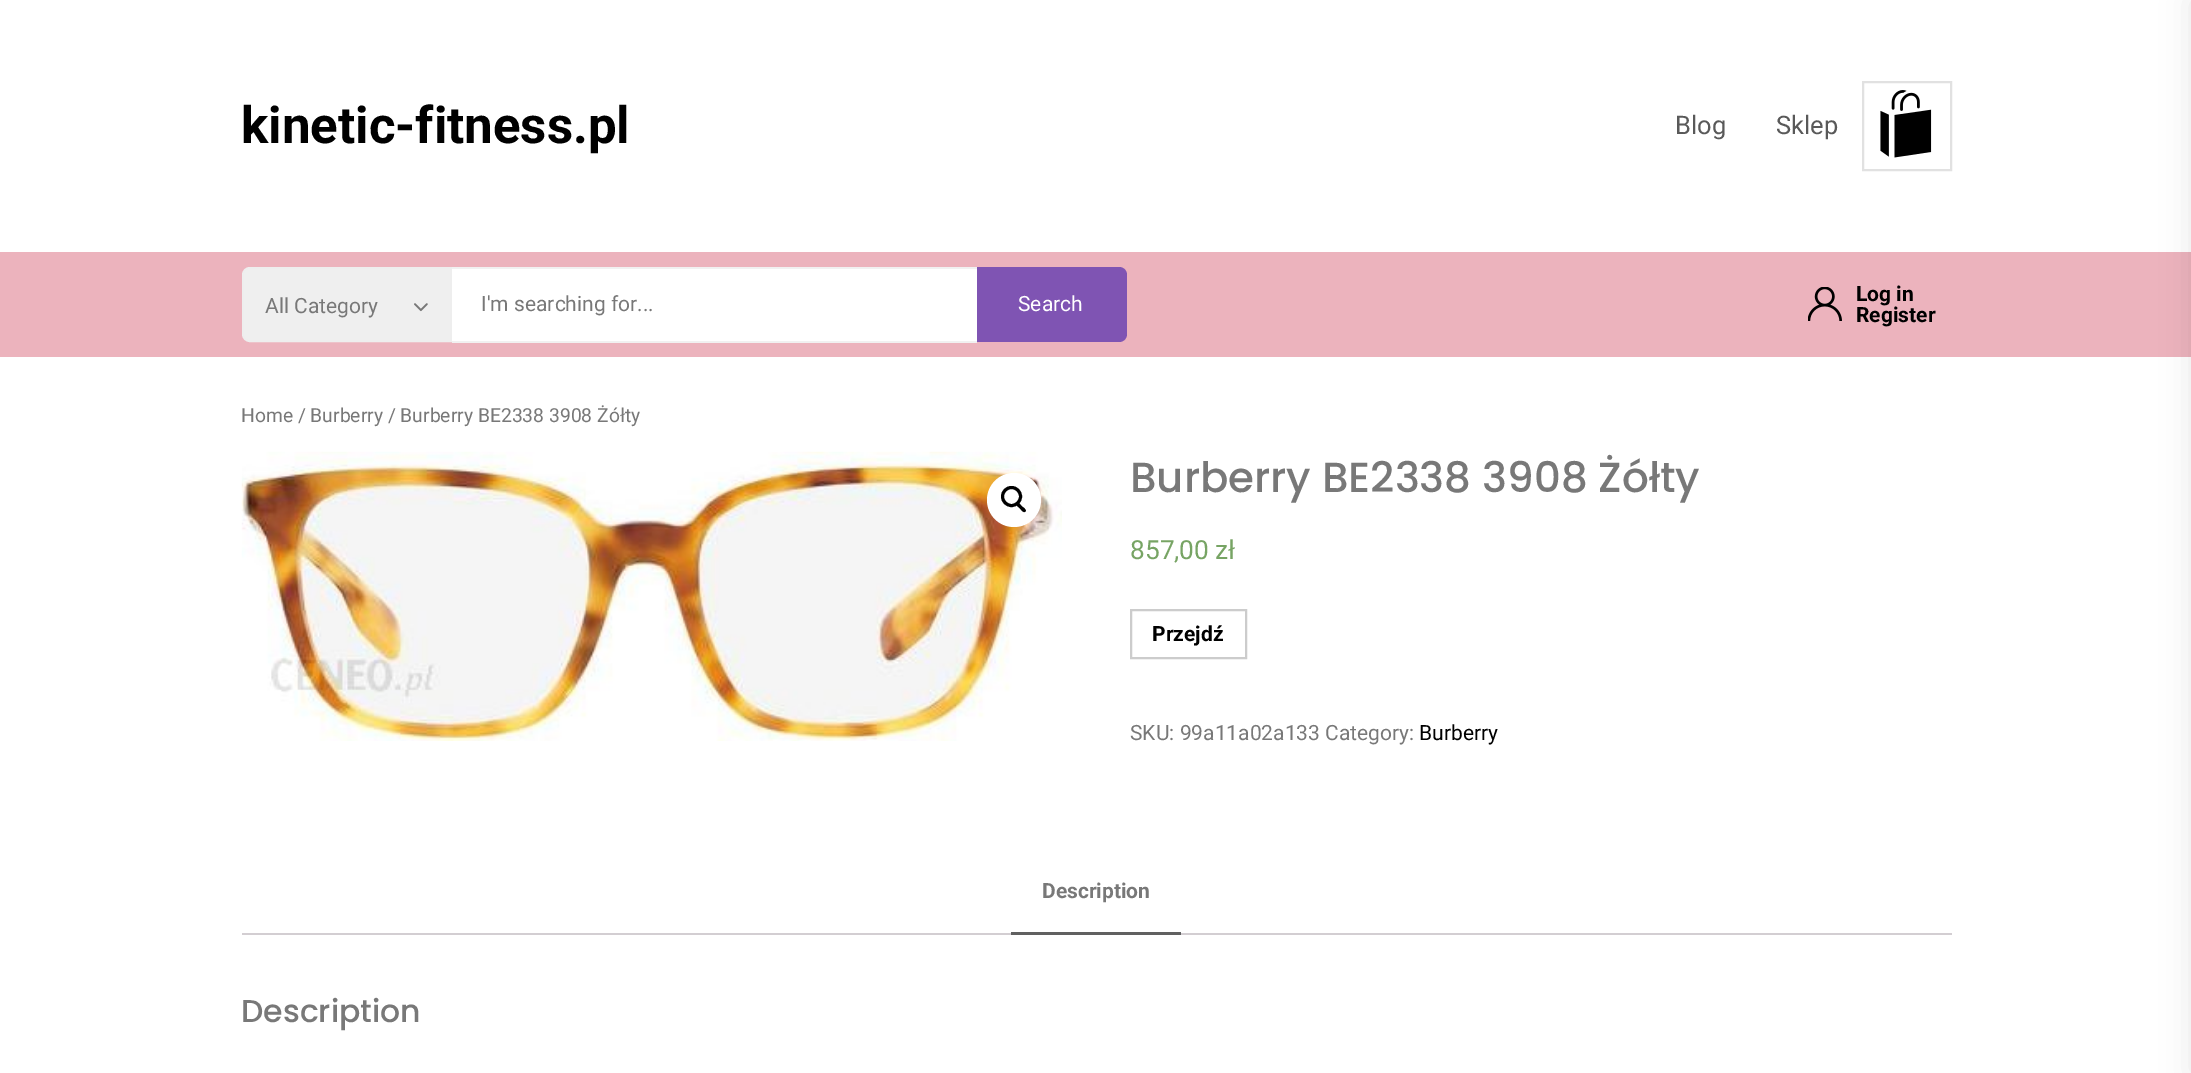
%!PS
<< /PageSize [2191 1073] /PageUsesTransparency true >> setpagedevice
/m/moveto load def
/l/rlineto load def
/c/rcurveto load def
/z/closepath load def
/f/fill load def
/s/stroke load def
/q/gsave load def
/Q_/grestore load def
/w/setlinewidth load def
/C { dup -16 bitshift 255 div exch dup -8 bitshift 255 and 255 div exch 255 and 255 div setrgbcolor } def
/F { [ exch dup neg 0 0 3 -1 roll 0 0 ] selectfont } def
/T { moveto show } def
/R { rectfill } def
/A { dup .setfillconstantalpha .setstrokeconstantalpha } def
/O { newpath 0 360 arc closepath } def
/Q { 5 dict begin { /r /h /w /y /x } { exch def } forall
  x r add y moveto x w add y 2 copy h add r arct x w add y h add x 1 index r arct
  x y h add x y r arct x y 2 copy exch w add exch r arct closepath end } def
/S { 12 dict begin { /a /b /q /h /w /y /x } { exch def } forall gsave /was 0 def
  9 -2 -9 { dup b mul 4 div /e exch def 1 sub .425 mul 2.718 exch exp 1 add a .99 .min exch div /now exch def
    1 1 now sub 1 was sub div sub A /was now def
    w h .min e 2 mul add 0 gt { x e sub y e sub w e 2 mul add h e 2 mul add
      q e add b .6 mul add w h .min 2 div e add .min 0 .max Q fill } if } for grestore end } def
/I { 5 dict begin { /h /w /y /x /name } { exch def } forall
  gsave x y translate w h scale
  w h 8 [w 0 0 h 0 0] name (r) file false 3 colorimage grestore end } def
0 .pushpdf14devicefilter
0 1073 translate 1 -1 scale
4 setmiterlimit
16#FFFFFF C
0 0 2191 1073 R
/Roboto-Bold 51 F
16#000000 C
(kinetic-fitness.pl) 241 143 T
/Roboto-Regular 25.5 F
16#595959 C
(Blog) 1675 134 T
(Sklep) 1776 134 T
16#E1E1E1 C
2 w
1863 82 88 88 rectstroke
(1.rgb) 1880 90 52 68 I
16#ECB3BD C
0 252 2191 105 R
16#000000 C
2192 0 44 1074 0 15 .1 S
16#EFEFEF C
250 268 m 201 0 l 0 73 l -201 0 l -4 0 -7 -3 -7 -7 c 0 -59 l 0 -4 3 -7 7 -7 c z q f Q_
16#EEEEEE C
s
/Roboto-Regular 21 F
16#787878 C
(All Category) 265 313 T
(2.rgb) 414 303 14 9 I
16#FFFFFF C
452 269 525 72 R
16#F1F1F1 C
452 267 525 2 R
452 341 525 2 R
16#787878 C
(I'm searching for...) 481 311 T
16#7F54B3 C
977 267 m 142 0 l 4.5 0 8 3.5 8 8 c 0 59 l 0 4.5 -3.5 8 -8 8 c -142 0 l z f
16#FFFFFF C
(Search) 1018 311 T
(3.rgb) 1808 287 34 34 I
/Roboto-Bold 21 F
16#000000 C
(Log in) 1856 301 T
(Register) 1856 322 T
/Roboto-Regular 19.3 F
16#787878 C
(Home / Burberry / Burberry BE2338 3908 Żółty) 241 422 T
(4.rgb) 241 451 821 290 I
16#FFFFFF C
1014 500 27 O f
16#000000 C
3 w
1011.5 496.5 9 O s
1017 503 m 1.5 -1.5 4 2.5 5 3.5 c 1 .5 5 3.5 3.5 5 c -2 2 -4.5 -2 -5.5 -3 c -1 -1 -5 -3.5 -3 -5.5 c z f
/Poppins-Medium 42 F
16#787878 C
(Burberry BE2338 3908 Żółty) 1130 492 T
/Roboto-Regular 26.25 F
16#77A464 C
(857,00 zł) 1130 559 T
16#CCCCCC C
2 w
1131 610 115 48 rectstroke
/Roboto-Bold 21 F
16#000000 C
(Przejdź) 1152 641 T
/Roboto-Regular 21 F
16#787878 C
(SKU: 99a11a02a133 Category:) 1130 740 T
16#000000 C
(Burberry) 1419 740 T
16#D3CED2 C
242 933 1710 2 R
16#FFFFFF C
1017 852 m 158 0 l 3.5 0 6 2.5 6 6 c 0 77 l -170 0 l 0 -77 l 0 -3.5 2.5 -6 6 -6 c z f
16#606060 C
1011 932 170 3 R
/Roboto-Bold 21 F
16#787878 C
(Description) 1042 898 T
/Poppins-Medium 31.5 F
(Description) 241 1022 T
.poppdf14devicefilter showpage
